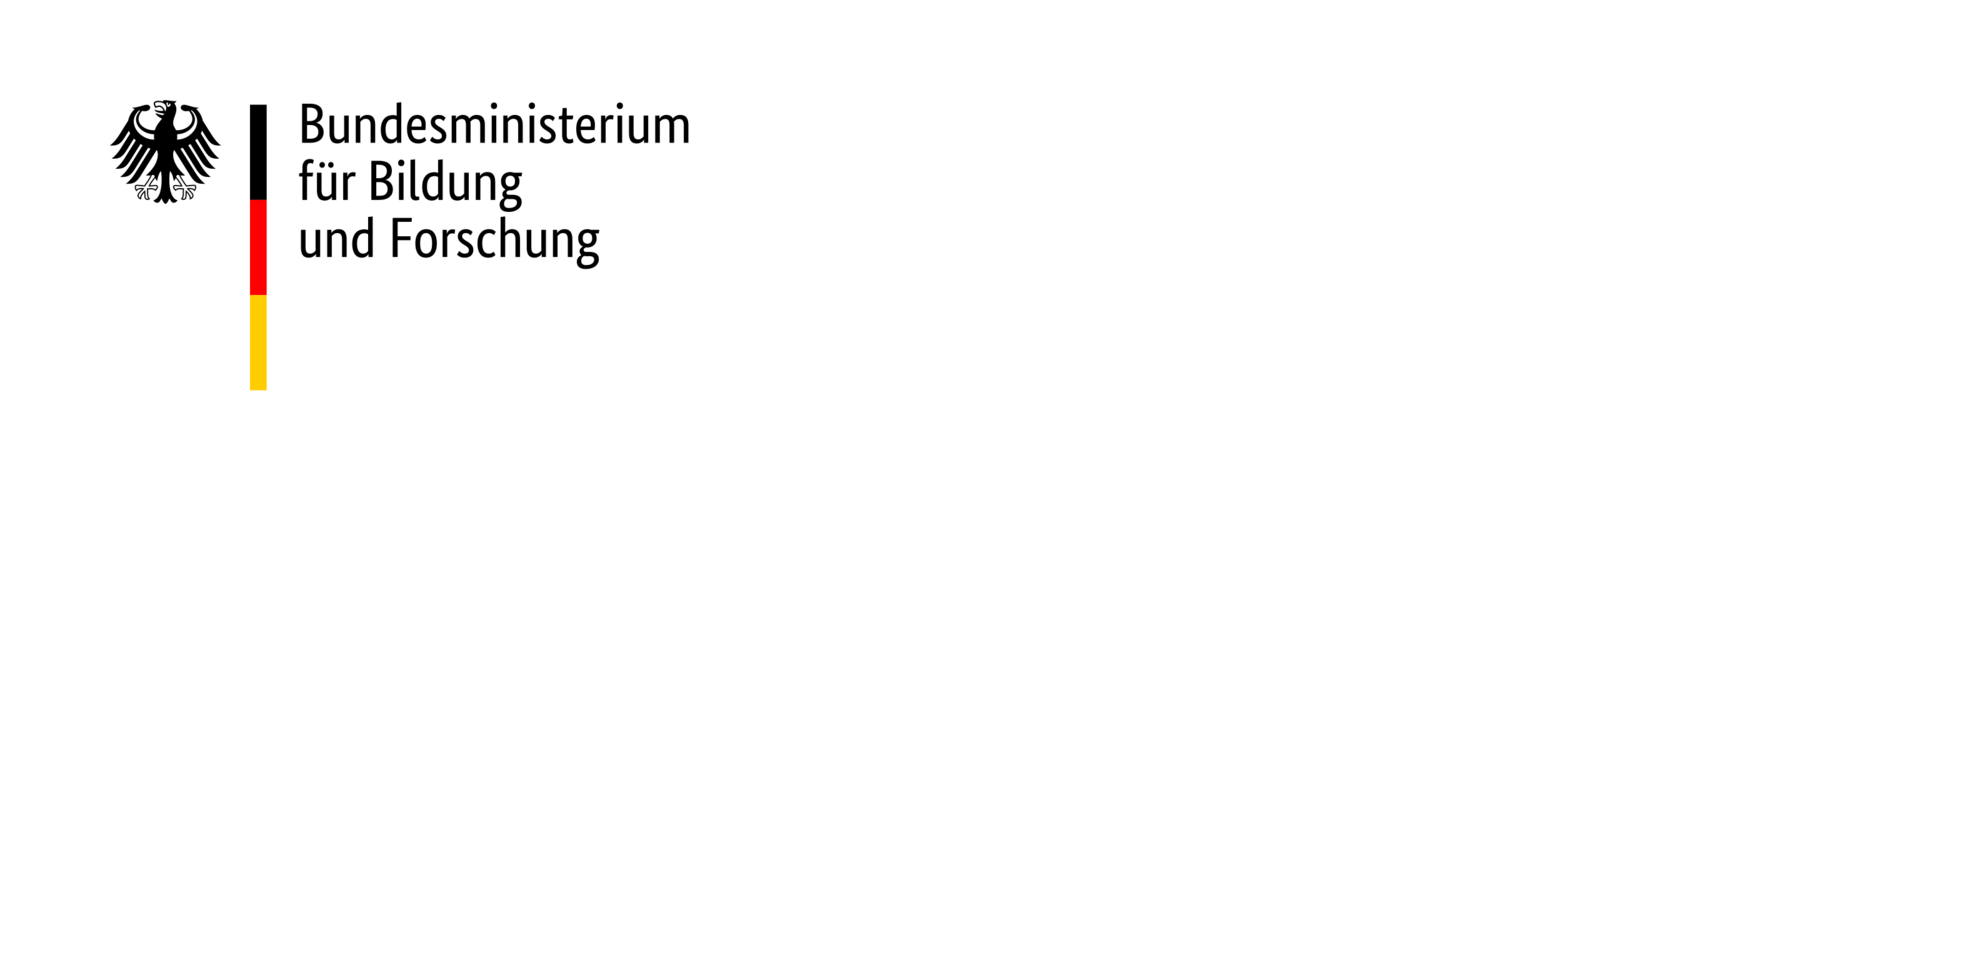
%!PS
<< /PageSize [1971 959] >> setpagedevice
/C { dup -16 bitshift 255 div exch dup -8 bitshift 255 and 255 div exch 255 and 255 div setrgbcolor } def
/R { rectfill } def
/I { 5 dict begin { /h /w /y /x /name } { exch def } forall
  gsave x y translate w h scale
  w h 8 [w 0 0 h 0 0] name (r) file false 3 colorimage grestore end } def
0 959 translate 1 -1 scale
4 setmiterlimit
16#FFFFFF C
0 0 1971 959 R
(1.rgb) 109 99 580 292 I
showpage
